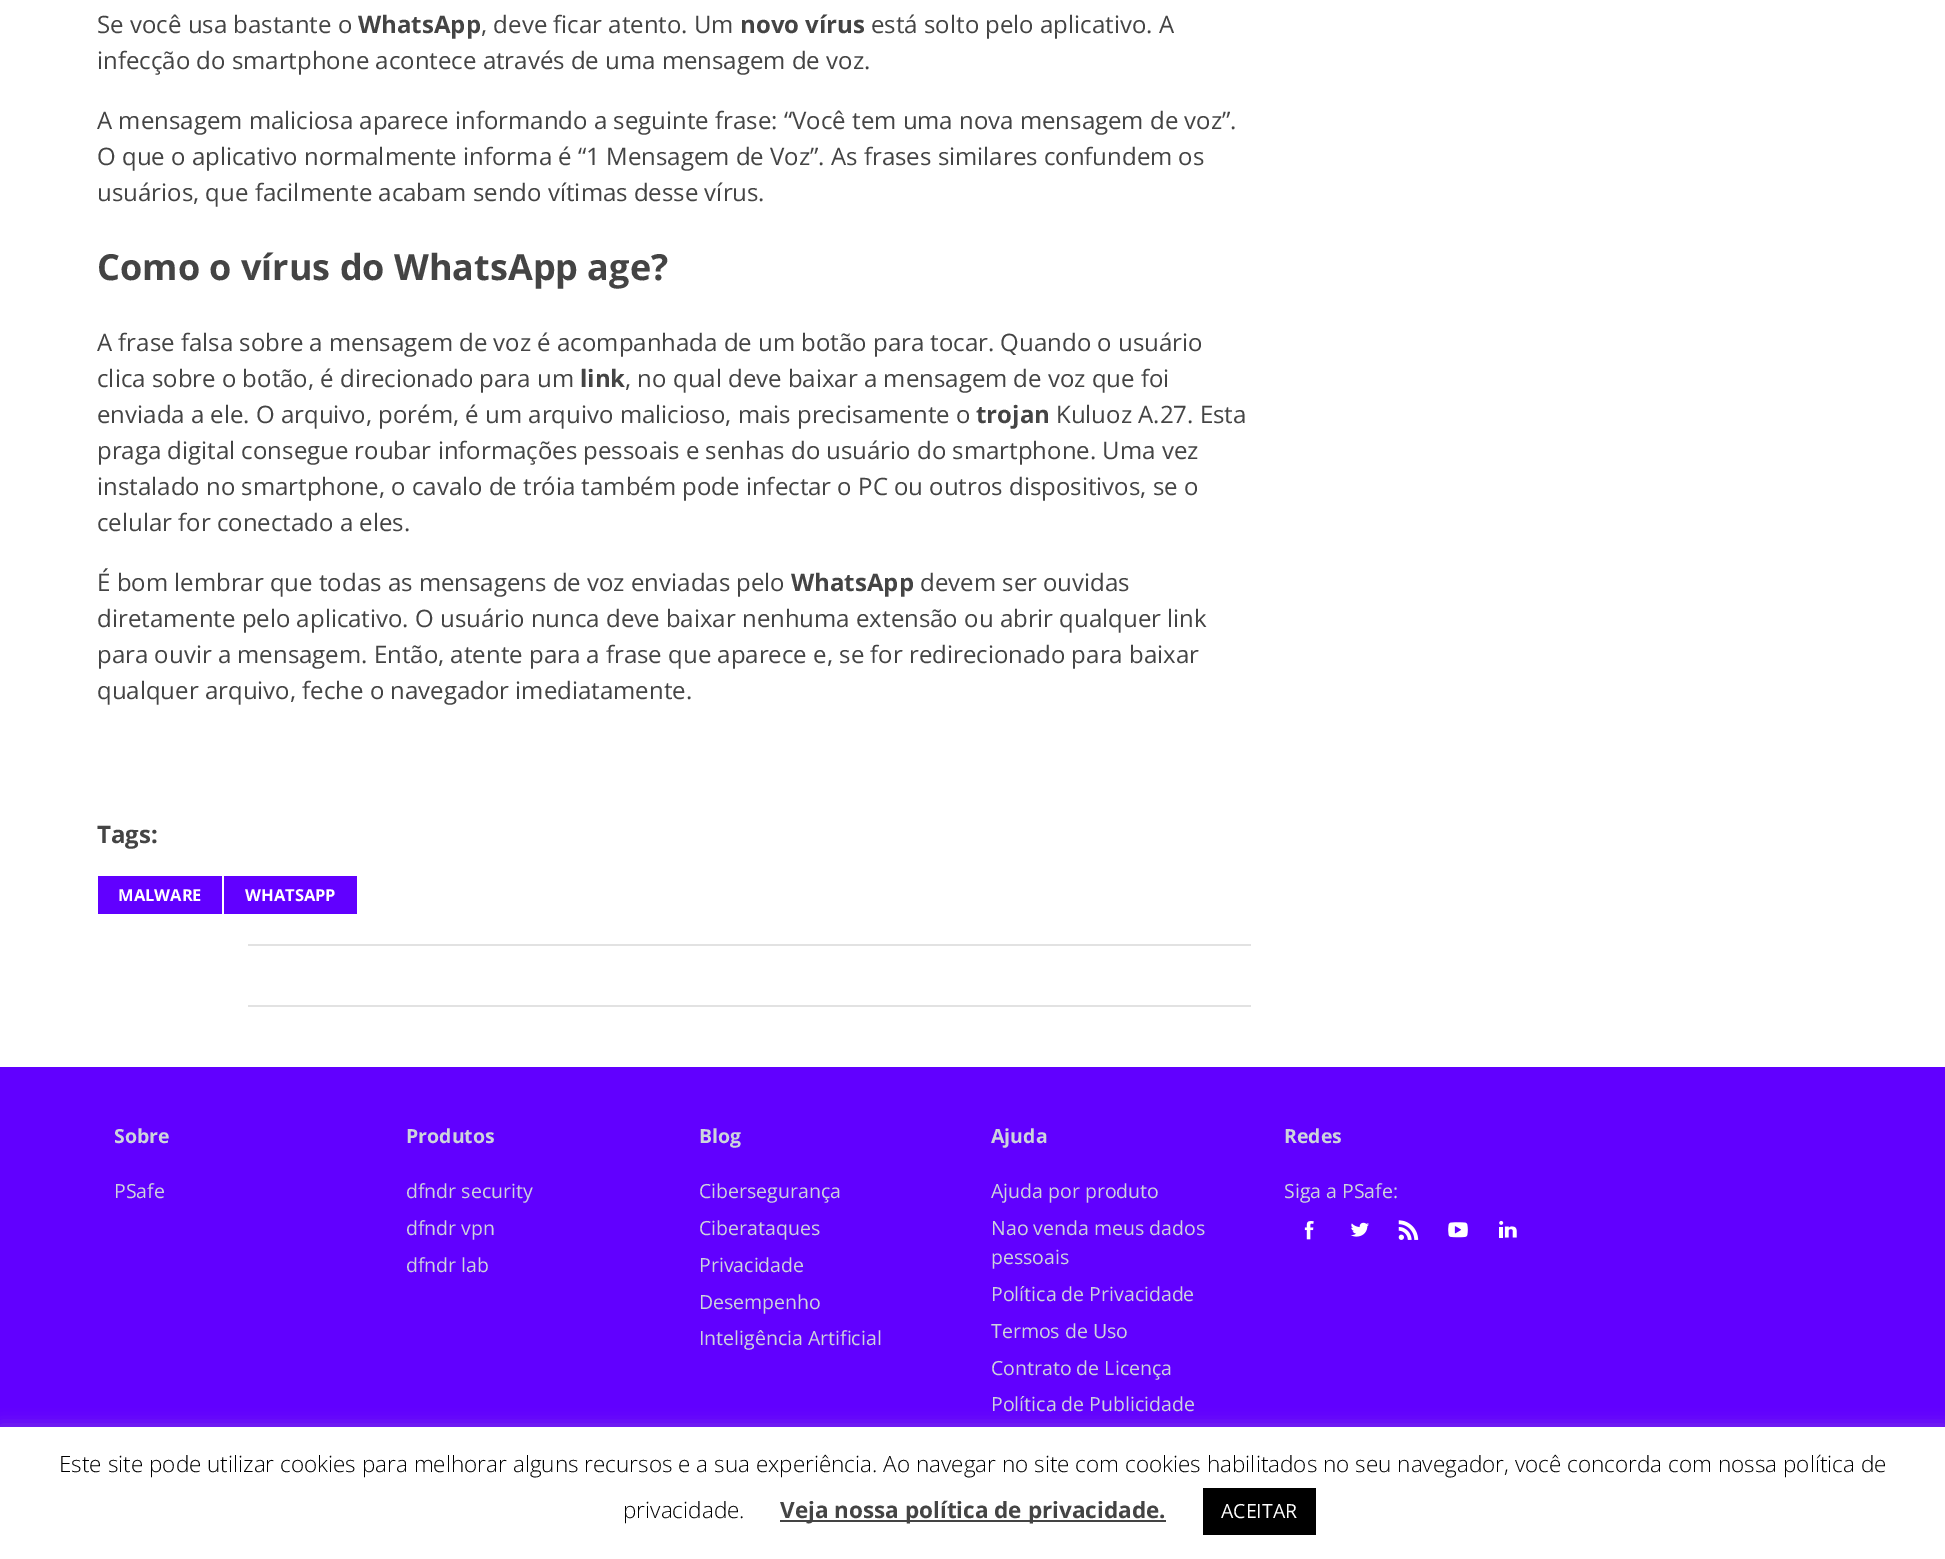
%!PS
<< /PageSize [1945 1559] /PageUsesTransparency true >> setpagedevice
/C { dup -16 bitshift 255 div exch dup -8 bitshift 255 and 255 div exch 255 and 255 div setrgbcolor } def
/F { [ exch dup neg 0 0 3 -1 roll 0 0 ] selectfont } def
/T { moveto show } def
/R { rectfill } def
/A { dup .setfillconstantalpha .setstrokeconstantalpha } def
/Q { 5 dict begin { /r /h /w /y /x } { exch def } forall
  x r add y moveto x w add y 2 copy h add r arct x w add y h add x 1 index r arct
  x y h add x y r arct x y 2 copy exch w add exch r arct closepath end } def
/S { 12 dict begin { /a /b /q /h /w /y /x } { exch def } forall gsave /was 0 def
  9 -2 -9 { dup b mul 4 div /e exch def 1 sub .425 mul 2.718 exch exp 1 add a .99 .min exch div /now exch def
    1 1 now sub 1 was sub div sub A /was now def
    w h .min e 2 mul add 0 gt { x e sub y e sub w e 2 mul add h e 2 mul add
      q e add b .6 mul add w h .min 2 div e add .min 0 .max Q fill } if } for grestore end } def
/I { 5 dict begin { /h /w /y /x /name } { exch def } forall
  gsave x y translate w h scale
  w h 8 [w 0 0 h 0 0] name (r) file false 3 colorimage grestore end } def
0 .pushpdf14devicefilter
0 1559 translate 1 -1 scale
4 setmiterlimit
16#FFFFFF C
0 0 1945 1559 R
/OpenSans-Regular 24 F
16#444444 C
(Se você usa bastante o) 97 33 T
/OpenSans-Bold 24 F
(WhatsApp) 358 33 T
/OpenSans-Regular 24 F
(, deve ficar atento. Um) 481 33 T
/OpenSans-Bold 24 F
(novo vírus) 740 33 T
/OpenSans-Regular 24 F
(está solto pelo aplicativo. A) 871 33 T
(infecção do smartphone acontece através de uma mensagem de voz.) 97 69 T
(A mensagem maliciosa aparece informando a seguinte frase: “Você tem uma nova mensagem de voz”.) 97 129 T
(O que o aplicativo normalmente informa é “1 Mensagem de Voz”. As frases similares confundem os) 97 165 T
(usuários, que facilmente acabam sendo vítimas desse vírus.) 97 201 T
/OpenSans-Bold 36 F
(Como o vírus do WhatsApp age?) 97 280 T
/OpenSans-Regular 24 F
(A frase falsa sobre a mensagem de voz é acompanhada de um botão para tocar. Quando o usuário) 97 351 T
(clica sobre o botão, é direcionado para um) 97 387 T
/OpenSans-Bold 24 F
(link) 580 387 T
/OpenSans-Regular 24 F
(, no qual deve baixar a mensagem de voz que foi) 625 387 T
(enviada a ele. O arquivo, porém, é um arquivo malicioso, mais precisamente o) 97 423 T
/OpenSans-Bold 24 F
(trojan) 976 423 T
/OpenSans-Regular 24 F
(Kuluoz A.27. Esta) 1056 423 T
(praga digital consegue roubar informações pessoais e senhas do usuário do smartphone. Uma vez) 97 459 T
(instalado no smartphone, o cavalo de tróia também pode infectar o PC ou outros dispositivos, se o) 97 495 T
(celular for conectado a eles.) 97 531 T
(É bom lembrar que todas as mensagens de voz enviadas pelo) 97 591 T
/OpenSans-Bold 24 F
(WhatsApp) 791 591 T
/OpenSans-Regular 24 F
(devem ser ouvidas) 920 591 T
(diretamente pelo aplicativo. O usuário nunca deve baixar nenhuma extensão ou abrir qualquer link) 97 627 T
(para ouvir a mensagem. Então, atente para a frase que aparece e, se for redirecionado para baixar) 97 663 T
(qualquer arquivo, feche o navegador imediatamente.) 97 699 T
/OpenSans-Bold 24 F
(Tags:) 97 843 T
16#6100FF C
98 876 124 38 R
/OpenSans-Bold 16.5 F
16#FFFFFF C
(MALWARE) 118 901 T
16#6100FF C
224 876 133 38 R
16#FFFFFF C
(WHATSAPP) 245 901 T
16#E2E2E2 C
248 944 1003 2 R
248 1005 1003 2 R
16#6100FF C
0 1067 1945 360 R
/OpenSans-Bold 19.5 F
16#CDD4DC C
(Sobre) 114 1143 T
/OpenSans-Regular 19.5 F
(PSafe) 114 1198 T
/OpenSans-Bold 19.5 F
(Produtos) 406 1143 T
/OpenSans-Regular 19.5 F
(dfndr security) 406 1198 T
(dfndr vpn) 406 1235 T
(dfndr lab) 406 1272 T
/OpenSans-Bold 19.5 F
(Blog) 699 1143 T
/OpenSans-Regular 19.5 F
(Cibersegurança) 699 1198 T
(Ciberataques) 699 1235 T
(Privacidade) 699 1272 T
(Desempenho) 699 1309 T
(Inteligência Artificial) 699 1345 T
/OpenSans-Bold 19.5 F
(Ajuda) 991 1143 T
/OpenSans-Regular 19.5 F
(Ajuda por produto) 991 1198 T
(Nao venda meus dados) 991 1235 T
(pessoais) 991 1264 T
(Política de Privacidade) 991 1301 T
(Termos de Uso) 991 1338 T
(Contrato de Licença) 991 1375 T
(Política de Publicidade) 991 1411 T
/OpenSans-Bold 19.5 F
(Redes) 1284 1143 T
/OpenSans-Regular 19.5 F
(Siga a PSafe:) 1284 1198 T
(1.rgb) 1304 1221 10 19 I
(2.rgb) 1350 1222 19 15 I
(3.rgb) 1398 1220 21 20 I
(4.rgb) 1448 1222 20 16 I
(5.rgb) 1499 1220 18 18 I
16#ACABAB C
0 1425 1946 134 0 7.5 .3 S
16#FFFFFF C
0 1427 1945 132 R
/OpenSans-Light 22.5 F
16#000000 C
(Este site pode utilizar cookies para melhorar alguns recursos e a sua experiência. Ao navegar no site com cookies habilitados no seu navegador, você concorda com nossa política de) 59 1472 T
(privacidade.) 623 1518 T
16#444444 C
780 1520 386 2 R
/OpenSans-Bold 22.5 F
(Veja nossa política de privacidade.) 780 1518 T
16#000000 C
1203 1488 113 47 R
/OpenSans-Regular 19.5 F
16#FFFFFF C
(ACEITAR) 1221 1518 T
.poppdf14devicefilter showpage
